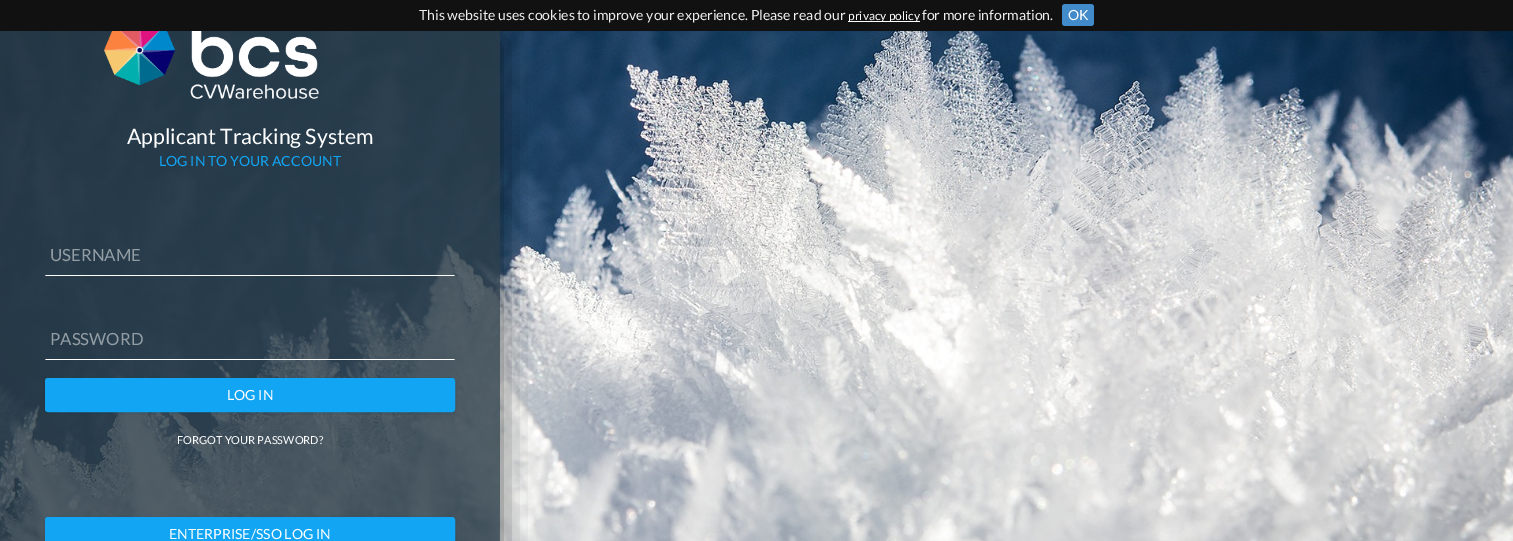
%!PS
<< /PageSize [1513 541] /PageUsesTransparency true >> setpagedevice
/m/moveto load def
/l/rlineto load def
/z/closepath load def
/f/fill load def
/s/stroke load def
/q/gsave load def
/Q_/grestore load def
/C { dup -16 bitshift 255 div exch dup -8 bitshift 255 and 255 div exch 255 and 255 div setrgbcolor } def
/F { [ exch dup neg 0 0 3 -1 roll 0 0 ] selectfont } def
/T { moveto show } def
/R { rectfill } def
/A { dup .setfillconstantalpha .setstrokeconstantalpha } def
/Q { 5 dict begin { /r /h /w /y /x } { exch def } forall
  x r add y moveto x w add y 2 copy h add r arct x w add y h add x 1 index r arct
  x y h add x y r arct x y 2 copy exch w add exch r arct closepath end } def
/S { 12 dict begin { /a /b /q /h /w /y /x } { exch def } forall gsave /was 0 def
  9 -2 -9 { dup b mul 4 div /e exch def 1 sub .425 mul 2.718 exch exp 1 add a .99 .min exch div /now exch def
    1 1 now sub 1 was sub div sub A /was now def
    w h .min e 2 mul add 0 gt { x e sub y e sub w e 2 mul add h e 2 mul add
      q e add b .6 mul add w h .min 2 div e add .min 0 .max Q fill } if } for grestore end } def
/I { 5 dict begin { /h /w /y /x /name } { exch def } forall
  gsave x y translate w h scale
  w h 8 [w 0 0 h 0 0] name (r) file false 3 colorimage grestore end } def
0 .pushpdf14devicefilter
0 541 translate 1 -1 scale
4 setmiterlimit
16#FFFFFF C
0 0 1513 541 R
(1.rgb) 0 31 1513 510 I
q
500 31 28 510 rectclip
16#000000 C
0 41 500 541 0 16 .5 S
Q_
16#111111 C
0 0 1513 31 R
/Lato-Regular 14 F
16#EEEEEE C
(This website uses cookies to improve your experience. Please read our) 419 20 T
16#FFFFFF C
848 21 72 1 R
/Lato-Regular 12 F
(privacy policy) 848 20 T
/Lato-Regular 14 F
16#EEEEEE C
(for more information.) 922 20 T
16#428BCA C
1062 4 32 22 3 Q f
16#FFFFFF C
(OK) 1068 20 T
0.8 A
16#2A3B46 C
0 31 500 510 R
1 A
(2.rgb) 104 31 215 68 I
/Lato-Regular 21.25 F
16#FFFFFF C
(Applicant Tracking System) 127 144 T
/Lato-Regular 14 F
16#12A5F4 C
(LOG IN TO YOUR ACCOUNT) 159 166 T
/Lato-Regular 16.75 F
16#939DA4 C
(USERNAME) 50 261 T
16#FFFFFF C
455 276 m -410 0 l 1 -1 l 408 0 l z f
16#939DA4 C
(PASSWORD) 50 345 T
16#FFFFFF C
455 360 m -410 0 l 1 -1 l 408 0 l z f
16#000000 C
45 379 410 34 3 1.5 .15 S
16#12A5F4 C
45.5 378.5 409 33 2.5 Q q f Q_
s
/Lato-Regular 14 F
16#FFFFFF C
(LOG IN) 227 400 T
/Lato-Regular 11 F
(FORGOT YOUR PASSWORD?) 177 444 T
16#000000 C
45 518 410 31 3 1.5 .15 S
16#12A5F4 C
45.5 517.5 409 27 2.5 Q q f Q_
s
/Lato-Regular 14 F
16#FFFFFF C
(ENTERPRISE/SSO LOG IN) 169 539 T
.poppdf14devicefilter showpage
